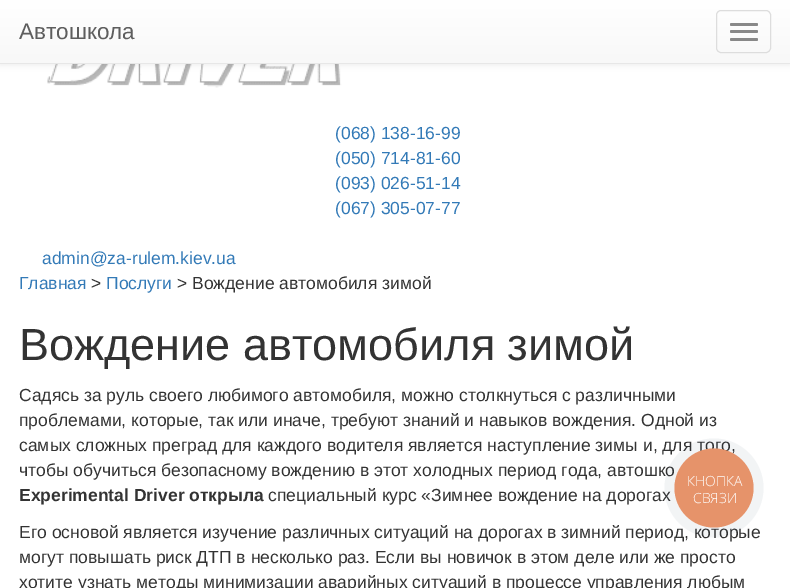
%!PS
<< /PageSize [790 588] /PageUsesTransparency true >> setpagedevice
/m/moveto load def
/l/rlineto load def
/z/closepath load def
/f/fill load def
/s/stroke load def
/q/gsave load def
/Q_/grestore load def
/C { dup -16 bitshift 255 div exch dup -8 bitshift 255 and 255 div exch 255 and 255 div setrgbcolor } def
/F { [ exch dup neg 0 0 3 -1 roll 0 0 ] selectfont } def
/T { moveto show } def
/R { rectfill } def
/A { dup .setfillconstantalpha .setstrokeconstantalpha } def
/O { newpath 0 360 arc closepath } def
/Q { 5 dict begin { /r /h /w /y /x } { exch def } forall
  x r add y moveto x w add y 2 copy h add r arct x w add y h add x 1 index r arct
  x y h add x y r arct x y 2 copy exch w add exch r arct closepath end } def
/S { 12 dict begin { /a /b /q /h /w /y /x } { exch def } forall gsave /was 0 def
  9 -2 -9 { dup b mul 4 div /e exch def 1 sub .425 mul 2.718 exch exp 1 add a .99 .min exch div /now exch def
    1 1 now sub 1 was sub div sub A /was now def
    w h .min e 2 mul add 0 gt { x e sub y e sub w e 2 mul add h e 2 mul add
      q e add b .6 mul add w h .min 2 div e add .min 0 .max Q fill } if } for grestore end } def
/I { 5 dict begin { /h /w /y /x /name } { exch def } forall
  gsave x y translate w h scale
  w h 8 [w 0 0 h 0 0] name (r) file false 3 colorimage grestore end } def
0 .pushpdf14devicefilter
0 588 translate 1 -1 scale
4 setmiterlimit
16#FFFFFF C
0 0 790 588 R
(1.rgb) 47 64 309 24 I
16#000000 C
0 1 790 64 0 3 .07 S
q 0 0 m 790 0 l 0 63 l -790 0 l z clip newpath
<< /ShadingType 2 /ColorSpace /DeviceRGB /Coords [395 0 395 63] /Extend [true true] /Function << /FunctionType 2 /Domain [0 1] /C0 [1 1 1] /C1 [.973 .973 .973] /N 1 >> >> shfill Q_
16#E7E7E7 C
0 63 790 1 R
/LiberationSans-Regular 22.5 F
16#5E5E5E C
(Автошкола) 19 39 T
16#DDDDDD C
716.5 10.5 54 42 4.5 Q s
16#888888 C
730 23 28 3 1.5 Q f
730 30 28 3 1.5 Q f
730 38 28 3 1.5 Q f
/LiberationSans-Regular 17.5 F
16#337AB7 C
(\(068\) 138-16-99) 335 139 T
(\(050\) 714-81-60) 335 164 T
(\(093\) 026-51-14) 335 189 T
(\(067\) 305-07-77) 335 214 T
(admin@za-rulem.kiev.ua) 42 264 T
(Главная) 19 289 T
16#333333 C
(>) 91 289 T
16#337AB7 C
(Послуги) 106 289 T
16#333333 C
(> Вождение автомобиля зимой) 177 289 T
/LiberationSans-Regular 45 F
(Вождение автомобиля зимой) 19 360 T
/LiberationSans-Regular 17.5 F
(Садясь за руль своего любимого автомобиля, можно столкнуться с различными) 19 401 T
(проблемами, которые, так или иначе, требуют знаний и навыков вождения. Одной из) 19 426 T
(самых сложных преград для каждого водителя является наступление зимы и, для того,) 19 451 T
(чтобы обучиться безопасному вождению в этот холодных период года, автошко) 19 476 T
/LiberationSans-Bold 17.5 F
(Experimental Driver открыла) 19 501 T
/LiberationSans-Regular 17.5 F
(специальный курс «Зимнее вождение на дорогах) 268 501 T
(Его основой является изучение различных ситуаций на дорогах в зимний период, которые) 19 538 T
(могут повышать риск ДТП в несколько раз. Если вы новичок в этом деле или же просто) 19 563 T
(хотите узнать методы минимизации аварийных ситуаций в процессе управления любым) 19 588 T
0.06 A
16#2A405D C
714 488 49.5 O f
1 A
16#E6936A C
714 488 39.5 O f
/OpenSans-Light 14 F
16#FFFFFF C
(КНОПКА) 687 486 T
(СВЯЗИ) 693 503 T
.poppdf14devicefilter showpage
